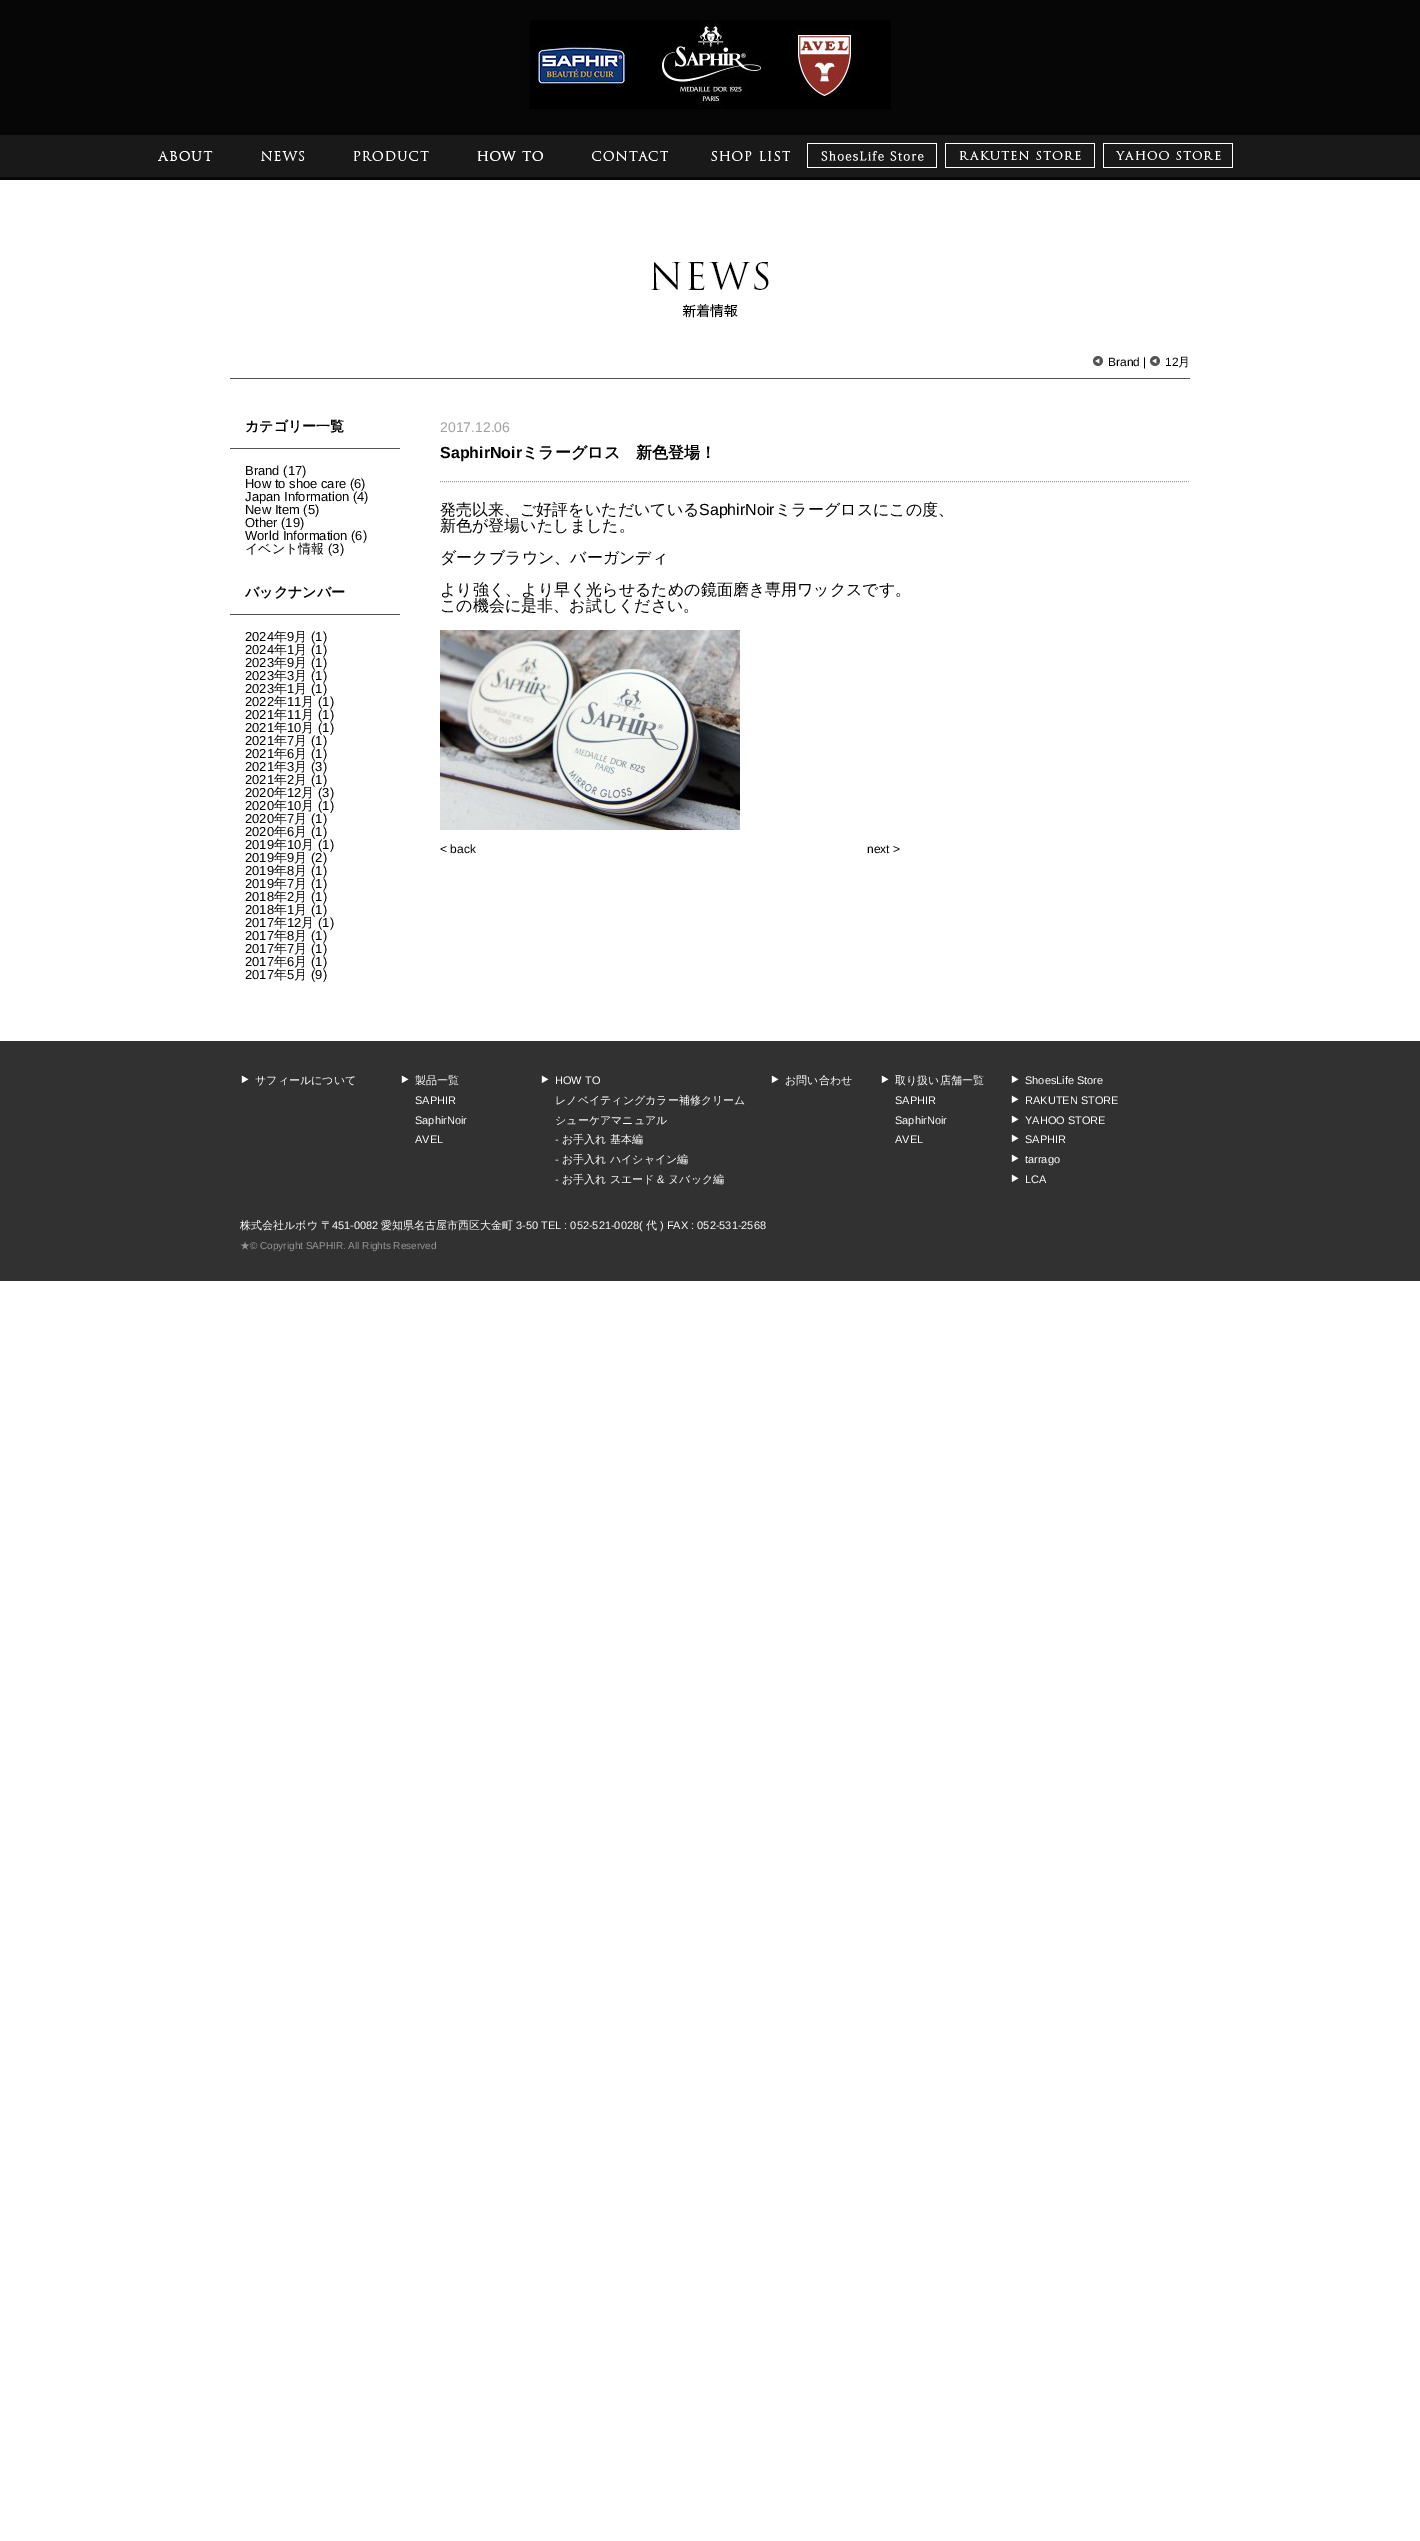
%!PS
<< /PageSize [1420 2541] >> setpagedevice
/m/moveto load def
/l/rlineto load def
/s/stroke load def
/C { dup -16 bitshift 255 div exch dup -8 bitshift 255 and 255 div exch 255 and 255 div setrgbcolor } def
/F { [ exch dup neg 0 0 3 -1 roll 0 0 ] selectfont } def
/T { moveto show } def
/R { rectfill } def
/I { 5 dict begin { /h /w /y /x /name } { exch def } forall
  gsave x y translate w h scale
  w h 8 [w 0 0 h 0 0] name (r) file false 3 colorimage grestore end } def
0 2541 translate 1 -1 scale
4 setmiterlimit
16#FFFFFF C
0 0 1420 2541 R
16#060606 C
0 0 1420 180 R
(1.rgb) 530 20 361 89 I
16#191919 C
0 135 1420 42 R
(2.rgb) 158 151 55 10 I
(3.rgb) 261 151 44 10 I
(4.rgb) 353 151 76 10 I
(5.rgb) 477 151 66 10 I
(6.rgb) 592 151 76 10 I
(7.rgb) 711 151 79 10 I
(8.rgb) 807 143 130 25 I
(9.rgb) 945 143 150 25 I
(10.rgb) 1103 143 130 25 I
(11.rgb) 651 261 118 57 I
(12.rgb) 1093 356 10 10 I
/LiberationSans-Regular 12 F
16#000000 C
(Brand |) 1108 366 T
(12.rgb) 1150 356 10 10 I
(12) 1165 366 T
/WenQuanYiZenHei-Medium 12 F
(月) 1178 366 T
16#535353 C
230 378 960 1 R
230 448 170 1 R
/WenQuanYiZenHei-Bold 14 F
16#000000 C
(カテゴリー一覧) 245 431 T
/LiberationSans-Regular 13 F
(Brand \(17\)) 245 475 T
(How to shoe care \(6\)) 245 488 T
(Japan Information \(4\)) 245 501 T
(New Item \(5\)) 245 514 T
(Other \(19\)) 245 527 T
(World Information \(6\)) 245 540 T
/WenQuanYiZenHei-Medium 13 F
(イベント情報) 245 553 T
/LiberationSans-Regular 13 F
(\(3\)) 328 553 T
16#535353 C
230 614 170 1 R
/WenQuanYiZenHei-Bold 14 F
16#000000 C
(バックナンバー) 245 597 T
/LiberationSans-Regular 13 F
(2024) 245 641 T
/WenQuanYiZenHei-Medium 13 F
(年) 274 641 T
/LiberationSans-Regular 13 F
(9) 287 641 T
/WenQuanYiZenHei-Medium 13 F
(月) 294 641 T
/LiberationSans-Regular 13 F
(\(1\)) 311 641 T
(2024) 245 654 T
/WenQuanYiZenHei-Medium 13 F
(年) 274 654 T
/LiberationSans-Regular 13 F
(1) 287 654 T
/WenQuanYiZenHei-Medium 13 F
(月) 294 654 T
/LiberationSans-Regular 13 F
(\(1\)) 311 654 T
(2023) 245 667 T
/WenQuanYiZenHei-Medium 13 F
(年) 274 667 T
/LiberationSans-Regular 13 F
(9) 287 667 T
/WenQuanYiZenHei-Medium 13 F
(月) 294 667 T
/LiberationSans-Regular 13 F
(\(1\)) 311 667 T
(2023) 245 680 T
/WenQuanYiZenHei-Medium 13 F
(年) 274 680 T
/LiberationSans-Regular 13 F
(3) 287 680 T
/WenQuanYiZenHei-Medium 13 F
(月) 294 680 T
/LiberationSans-Regular 13 F
(\(1\)) 311 680 T
(2023) 245 693 T
/WenQuanYiZenHei-Medium 13 F
(年) 274 693 T
/LiberationSans-Regular 13 F
(1) 287 693 T
/WenQuanYiZenHei-Medium 13 F
(月) 294 693 T
/LiberationSans-Regular 13 F
(\(1\)) 311 693 T
(2022) 245 706 T
/WenQuanYiZenHei-Medium 13 F
(年) 274 706 T
/LiberationSans-Regular 13 F
(11) 287 706 T
/WenQuanYiZenHei-Medium 13 F
(月) 301 706 T
/LiberationSans-Regular 13 F
(\(1\)) 318 706 T
(2021) 245 719 T
/WenQuanYiZenHei-Medium 13 F
(年) 274 719 T
/LiberationSans-Regular 13 F
(11) 287 719 T
/WenQuanYiZenHei-Medium 13 F
(月) 301 719 T
/LiberationSans-Regular 13 F
(\(1\)) 318 719 T
(2021) 245 732 T
/WenQuanYiZenHei-Medium 13 F
(年) 274 732 T
/LiberationSans-Regular 13 F
(10) 287 732 T
/WenQuanYiZenHei-Medium 13 F
(月) 301 732 T
/LiberationSans-Regular 13 F
(\(1\)) 318 732 T
(2021) 245 745 T
/WenQuanYiZenHei-Medium 13 F
(年) 274 745 T
/LiberationSans-Regular 13 F
(7) 287 745 T
/WenQuanYiZenHei-Medium 13 F
(月) 294 745 T
/LiberationSans-Regular 13 F
(\(1\)) 311 745 T
(2021) 245 758 T
/WenQuanYiZenHei-Medium 13 F
(年) 274 758 T
/LiberationSans-Regular 13 F
(6) 287 758 T
/WenQuanYiZenHei-Medium 13 F
(月) 294 758 T
/LiberationSans-Regular 13 F
(\(1\)) 311 758 T
(2021) 245 771 T
/WenQuanYiZenHei-Medium 13 F
(年) 274 771 T
/LiberationSans-Regular 13 F
(3) 287 771 T
/WenQuanYiZenHei-Medium 13 F
(月) 294 771 T
/LiberationSans-Regular 13 F
(\(3\)) 311 771 T
(2021) 245 784 T
/WenQuanYiZenHei-Medium 13 F
(年) 274 784 T
/LiberationSans-Regular 13 F
(2) 287 784 T
/WenQuanYiZenHei-Medium 13 F
(月) 294 784 T
/LiberationSans-Regular 13 F
(\(1\)) 311 784 T
(2020) 245 797 T
/WenQuanYiZenHei-Medium 13 F
(年) 274 797 T
/LiberationSans-Regular 13 F
(12) 287 797 T
/WenQuanYiZenHei-Medium 13 F
(月) 301 797 T
/LiberationSans-Regular 13 F
(\(3\)) 318 797 T
(2020) 245 810 T
/WenQuanYiZenHei-Medium 13 F
(年) 274 810 T
/LiberationSans-Regular 13 F
(10) 287 810 T
/WenQuanYiZenHei-Medium 13 F
(月) 301 810 T
/LiberationSans-Regular 13 F
(\(1\)) 318 810 T
(2020) 245 823 T
/WenQuanYiZenHei-Medium 13 F
(年) 274 823 T
/LiberationSans-Regular 13 F
(7) 287 823 T
/WenQuanYiZenHei-Medium 13 F
(月) 294 823 T
/LiberationSans-Regular 13 F
(\(1\)) 311 823 T
(2020) 245 836 T
/WenQuanYiZenHei-Medium 13 F
(年) 274 836 T
/LiberationSans-Regular 13 F
(6) 287 836 T
/WenQuanYiZenHei-Medium 13 F
(月) 294 836 T
/LiberationSans-Regular 13 F
(\(1\)) 311 836 T
(2019) 245 849 T
/WenQuanYiZenHei-Medium 13 F
(年) 274 849 T
/LiberationSans-Regular 13 F
(10) 287 849 T
/WenQuanYiZenHei-Medium 13 F
(月) 301 849 T
/LiberationSans-Regular 13 F
(\(1\)) 318 849 T
(2019) 245 862 T
/WenQuanYiZenHei-Medium 13 F
(年) 274 862 T
/LiberationSans-Regular 13 F
(9) 287 862 T
/WenQuanYiZenHei-Medium 13 F
(月) 294 862 T
/LiberationSans-Regular 13 F
(\(2\)) 311 862 T
(2019) 245 875 T
/WenQuanYiZenHei-Medium 13 F
(年) 274 875 T
/LiberationSans-Regular 13 F
(8) 287 875 T
/WenQuanYiZenHei-Medium 13 F
(月) 294 875 T
/LiberationSans-Regular 13 F
(\(1\)) 311 875 T
(2019) 245 888 T
/WenQuanYiZenHei-Medium 13 F
(年) 274 888 T
/LiberationSans-Regular 13 F
(7) 287 888 T
/WenQuanYiZenHei-Medium 13 F
(月) 294 888 T
/LiberationSans-Regular 13 F
(\(1\)) 311 888 T
(2018) 245 901 T
/WenQuanYiZenHei-Medium 13 F
(年) 274 901 T
/LiberationSans-Regular 13 F
(2) 287 901 T
/WenQuanYiZenHei-Medium 13 F
(月) 294 901 T
/LiberationSans-Regular 13 F
(\(1\)) 311 901 T
(2018) 245 914 T
/WenQuanYiZenHei-Medium 13 F
(年) 274 914 T
/LiberationSans-Regular 13 F
(1) 287 914 T
/WenQuanYiZenHei-Medium 13 F
(月) 294 914 T
/LiberationSans-Regular 13 F
(\(1\)) 311 914 T
(2017) 245 927 T
/WenQuanYiZenHei-Medium 13 F
(年) 274 927 T
/LiberationSans-Regular 13 F
(12) 287 927 T
/WenQuanYiZenHei-Medium 13 F
(月) 301 927 T
/LiberationSans-Regular 13 F
(\(1\)) 318 927 T
(2017) 245 940 T
/WenQuanYiZenHei-Medium 13 F
(年) 274 940 T
/LiberationSans-Regular 13 F
(8) 287 940 T
/WenQuanYiZenHei-Medium 13 F
(月) 294 940 T
/LiberationSans-Regular 13 F
(\(1\)) 311 940 T
(2017) 245 953 T
/WenQuanYiZenHei-Medium 13 F
(年) 274 953 T
/LiberationSans-Regular 13 F
(7) 287 953 T
/WenQuanYiZenHei-Medium 13 F
(月) 294 953 T
/LiberationSans-Regular 13 F
(\(1\)) 311 953 T
(2017) 245 966 T
/WenQuanYiZenHei-Medium 13 F
(年) 274 966 T
/LiberationSans-Regular 13 F
(6) 287 966 T
/WenQuanYiZenHei-Medium 13 F
(月) 294 966 T
/LiberationSans-Regular 13 F
(\(1\)) 311 966 T
(2017) 245 979 T
/WenQuanYiZenHei-Medium 13 F
(年) 274 979 T
/LiberationSans-Regular 13 F
(5) 287 979 T
/WenQuanYiZenHei-Medium 13 F
(月) 294 979 T
/LiberationSans-Regular 13 F
(\(9\)) 311 979 T
/LiberationSans-Regular 14 F
16#A1A1A1 C
(2017.12.06) 440 432 T
/LiberationSans-Bold 16 F
16#000000 C
(SaphirNoir) 440 458 T
/WenQuanYiZenHei-Bold 16 F
(ミラーグロス　新色登場！) 522 458 T
16#9F9F9F C
[1 1] 0 setdash
440 481.5 m 750 0 l s
/WenQuanYiZenHei-Medium 16 F
16#000000 C
(発売以来、ご好評をいただいている) 440 515 T
/LiberationSans-Regular 16 F
(SaphirNoir) 699 515 T
/WenQuanYiZenHei-Medium 16 F
(ミラーグロスにこの度、) 775 515 T
(新色が登場いたしました。) 440 531 T
(ダークブラウン、バーガンディ) 440 563 T
(より強く、より早く光らせるための鏡面磨き専用ワックスです。) 440 595 T
(この機会に是非、お試しください。) 440 611 T
(13.rgb) 440 630 300 200 I
/LiberationSans-Regular 12 F
(< back) 440 853 T
(next >) 867 853 T
16#313131 C
0 1041 1420 240 R
(14.rgb) 241 1075 8 8 I
/WenQuanYiZenHei-Medium 11 F
16#FFFFFF C
(サフィールについて) 255 1084 T
(14.rgb) 401 1075 8 8 I
(製品一覧) 415 1084 T
/LiberationSans-Regular 11 F
(SAPHIR) 415 1104 T
(SaphirNoir) 415 1124 T
(AVEL) 415 1143 T
(14.rgb) 541 1075 8 8 I
(HOW TO) 555 1084 T
/WenQuanYiZenHei-Medium 11 F
(レノベイティングカラー補修クリーム) 555 1104 T
(シューケアマニュアル) 555 1124 T
/LiberationSans-Regular 11 F
(-) 555 1143 T
/WenQuanYiZenHei-Medium 11 F
(お手入れ 基本編) 562 1143 T
/LiberationSans-Regular 11 F
(-) 555 1163 T
/WenQuanYiZenHei-Medium 11 F
(お手入れ ハイシャイン編) 562 1163 T
/LiberationSans-Regular 11 F
(-) 555 1183 T
/WenQuanYiZenHei-Medium 11 F
(お手入れ スエード) 562 1183 T
/LiberationSans-Regular 11 F
(&) 657 1183 T
/WenQuanYiZenHei-Medium 11 F
(ヌバック編) 668 1183 T
(14.rgb) 771 1075 8 8 I
(お問い合わせ) 785 1084 T
(14.rgb) 881 1075 8 8 I
(取り扱い店舗一覧) 895 1084 T
/LiberationSans-Regular 11 F
(SAPHIR) 895 1104 T
(SaphirNoir) 895 1124 T
(AVEL) 895 1143 T
(14.rgb) 1011 1075 8 8 I
(ShoesLife Store) 1025 1084 T
(14.rgb) 1011 1095 8 8 I
(RAKUTEN STORE) 1025 1104 T
(14.rgb) 1011 1115 8 8 I
(YAHOO STORE) 1025 1124 T
(14.rgb) 1011 1134 8 8 I
(SAPHIR) 1025 1143 T
(14.rgb) 1011 1154 8 8 I
(tarrago) 1025 1163 T
(14.rgb) 1011 1174 8 8 I
(LCA) 1025 1183 T
/WenQuanYiZenHei-Medium 11 F
(株式会社ルボウ 〒) 240 1229 T
/LiberationSans-Regular 11 F
(451-0082) 332 1229 T
/WenQuanYiZenHei-Medium 11 F
(愛知県名古屋市西区大金町) 381 1229 T
/LiberationSans-Regular 11 F
(3-50 TEL : 052-521-0028\() 516 1229 T
/WenQuanYiZenHei-Medium 11 F
(代) 646 1229 T
/LiberationSans-Regular 11 F
(\) FAX : 052-531-2568) 660 1229 T
/WenQuanYiZenHei-Medium 10 F
16#959595 C
(★) 240 1249 T
/LiberationSans-Regular 10 F
(© Copyright SAPHIR. All Rights Reserved) 250 1249 T
showpage
